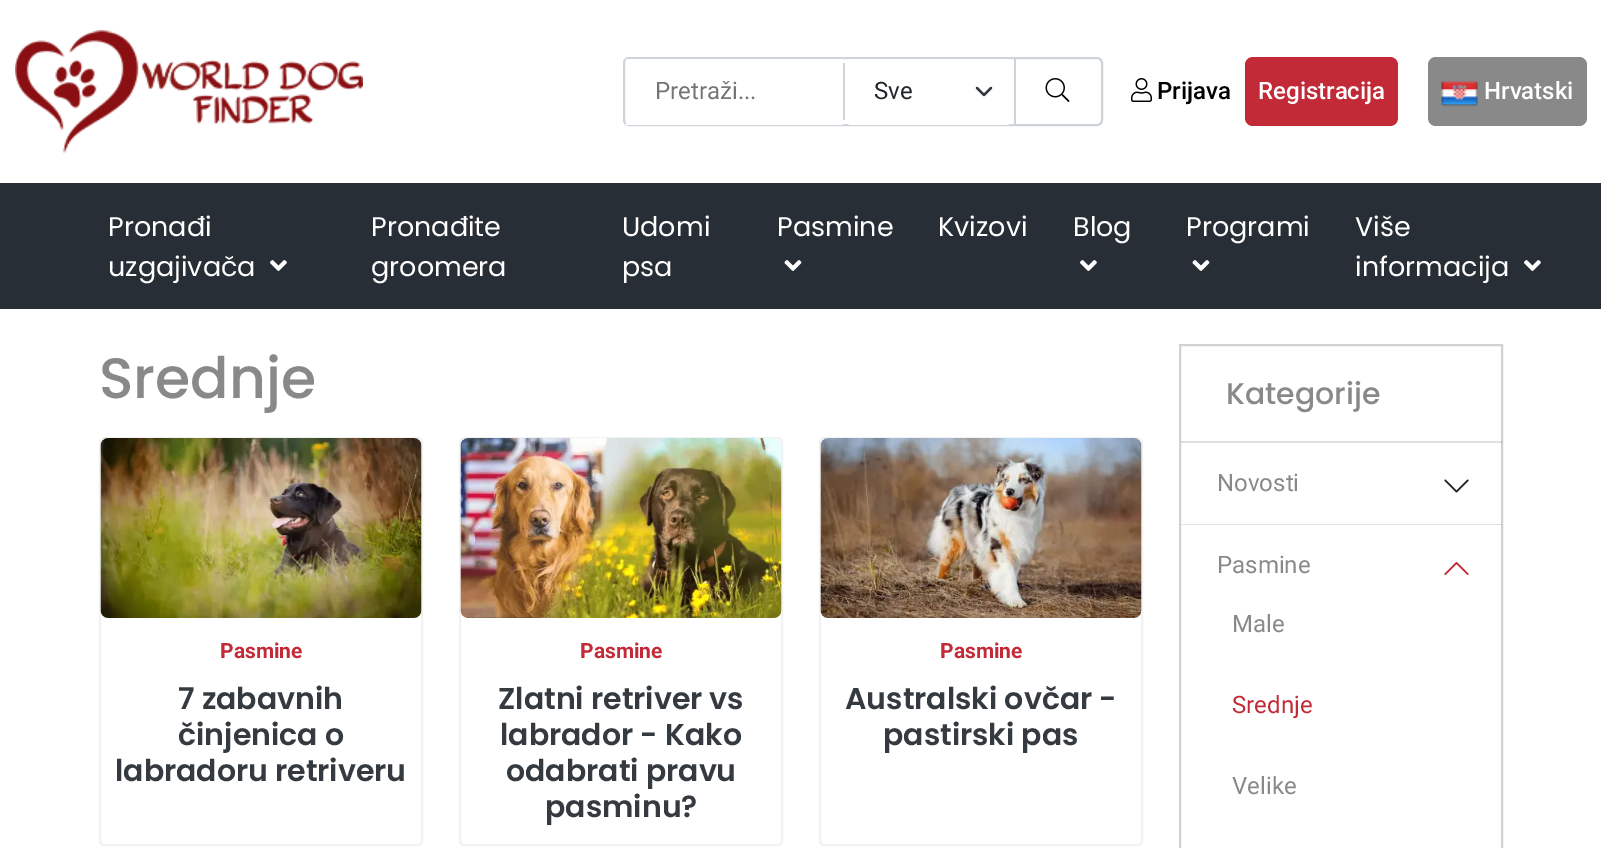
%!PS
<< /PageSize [1601 848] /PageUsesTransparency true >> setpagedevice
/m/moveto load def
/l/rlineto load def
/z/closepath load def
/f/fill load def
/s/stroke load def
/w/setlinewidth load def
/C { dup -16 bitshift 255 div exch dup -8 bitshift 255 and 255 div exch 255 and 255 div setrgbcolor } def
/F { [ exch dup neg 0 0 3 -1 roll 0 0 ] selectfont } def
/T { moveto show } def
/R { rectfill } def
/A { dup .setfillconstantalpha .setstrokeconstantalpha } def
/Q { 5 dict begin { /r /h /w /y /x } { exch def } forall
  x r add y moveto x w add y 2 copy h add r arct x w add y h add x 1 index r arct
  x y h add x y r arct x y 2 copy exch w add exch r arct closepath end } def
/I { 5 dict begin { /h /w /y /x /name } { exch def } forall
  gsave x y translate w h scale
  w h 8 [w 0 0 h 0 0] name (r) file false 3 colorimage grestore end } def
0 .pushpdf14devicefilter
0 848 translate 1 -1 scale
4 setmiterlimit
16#FFFFFF C
0 0 1601 848 R
(1.rgb) 15 30 348 123 I
16#CED4DA C
2 w
624 58 478 67 5 Q s
16#FFFFFF C
626 59 217 66 R
/Roboto-Regular 24 F
16#757575 C
(Pretraži...) 655 99 T
16#FFFFFF C
843 59 171 66 9 Q f
16#343A40 C
2.2 w
1 setlinecap
1 setlinejoin
977 88 m 7 7 l 7 -7 l s
16#CED4DA C
843 63 2 57 R
16#212529 C
(Sve) 874 99 T
16#CED4DA C
1014 59 2 66 R
(2.rgb) 1045 78 25 24 I
(3.rgb) 1131 78 21 24 I
/Roboto-Medium 24 F
16#000000 C
(Prijava) 1157 99 T
16#C22A37 C
1245 57 153 69 8 Q f
16#FFFFFF C
(Registracija) 1258 99 T
16#898989 C
1428 57 159 69 8 Q f
(4.rgb) 1441 81 37 26 I
16#FFFFFF C
(Hrvatski) 1484 99 T
16#282E36 C
0 183 1601 126 R
/Poppins-Regular 27 F
16#FFFFFF C
(Pronađi) 108 236 T
(uzgajivača) 108 276 T
(5.rgb) 270 260 17 11 I
(Pronađite) 371 236 T
(groomera) 371 276 T
(Udomi) 622 236 T
(psa) 622 276 T
(Pasmine) 777 236 T
(6.rgb) 784 260 18 11 I
(Kvizovi) 938 236 T
(Blog) 1073 236 T
(5.rgb) 1080 260 17 11 I
(Programi) 1186 236 T
(6.rgb) 1192 260 18 11 I
(Više) 1355 236 T
(informacija) 1355 276 T
(5.rgb) 1524 260 17 11 I
/Poppins-Medium 57 F
16#898989 C
(Srednje) 99 398 T
16#F2F2F2 C
2 w
0 setlinecap
0 setlinejoin
100 438 322 407 4 Q s
(7.rgb) 100 438 322 180 I
/Roboto-Bold 21 F
16#C22A37 C
(Pasmine) 220 658 T
/Poppins-SemiBold 30 F
16#343A40 C
(7 zabavnih) 178 709 T
(činjenica o) 178 745 T
(labradoru retriveru) 115 781 T
16#F2F2F2 C
460 438 322 407 4 Q s
(8.rgb) 460 438 322 180 I
/Roboto-Bold 21 F
16#C22A37 C
(Pasmine) 580 658 T
/Poppins-SemiBold 30 F
16#343A40 C
(Zlatni retriver vs) 498 709 T
(labrador - Kako) 500 745 T
(odabrati pravu) 506 781 T
(pasminu?) 545 817 T
16#F2F2F2 C
820 438 322 407 4 Q s
(9.rgb) 820 438 322 180 I
/Roboto-Bold 21 F
16#C22A37 C
(Pasmine) 940 658 T
/Poppins-SemiBold 30 F
16#343A40 C
(Australski ovčar -) 845 709 T
(pastirski pas) 883 745 T
16#D2D2D2 C
1180 345 322 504 rectstroke
0.12 A
16#000000 C
1181 441 321 2 R
/Poppins-Medium 30 F
1 A
16#898989 C
(Kategorije) 1226 404 T
0.12 A
16#000000 C
1502 525 m -322 0 l 6 -1 l 316 0 l z f
/Roboto-Regular 24 F
1 A
16#898989 C
(Novosti) 1217 491 T
(10.rgb) 1444 479 25 14 I
(Pasmine) 1217 573 T
(11.rgb) 1444 562 25 13 I
(Male) 1232 632 T
16#C22A37 C
(Srednje) 1232 713 T
16#898989 C
(Velike) 1232 794 T
.poppdf14devicefilter showpage
